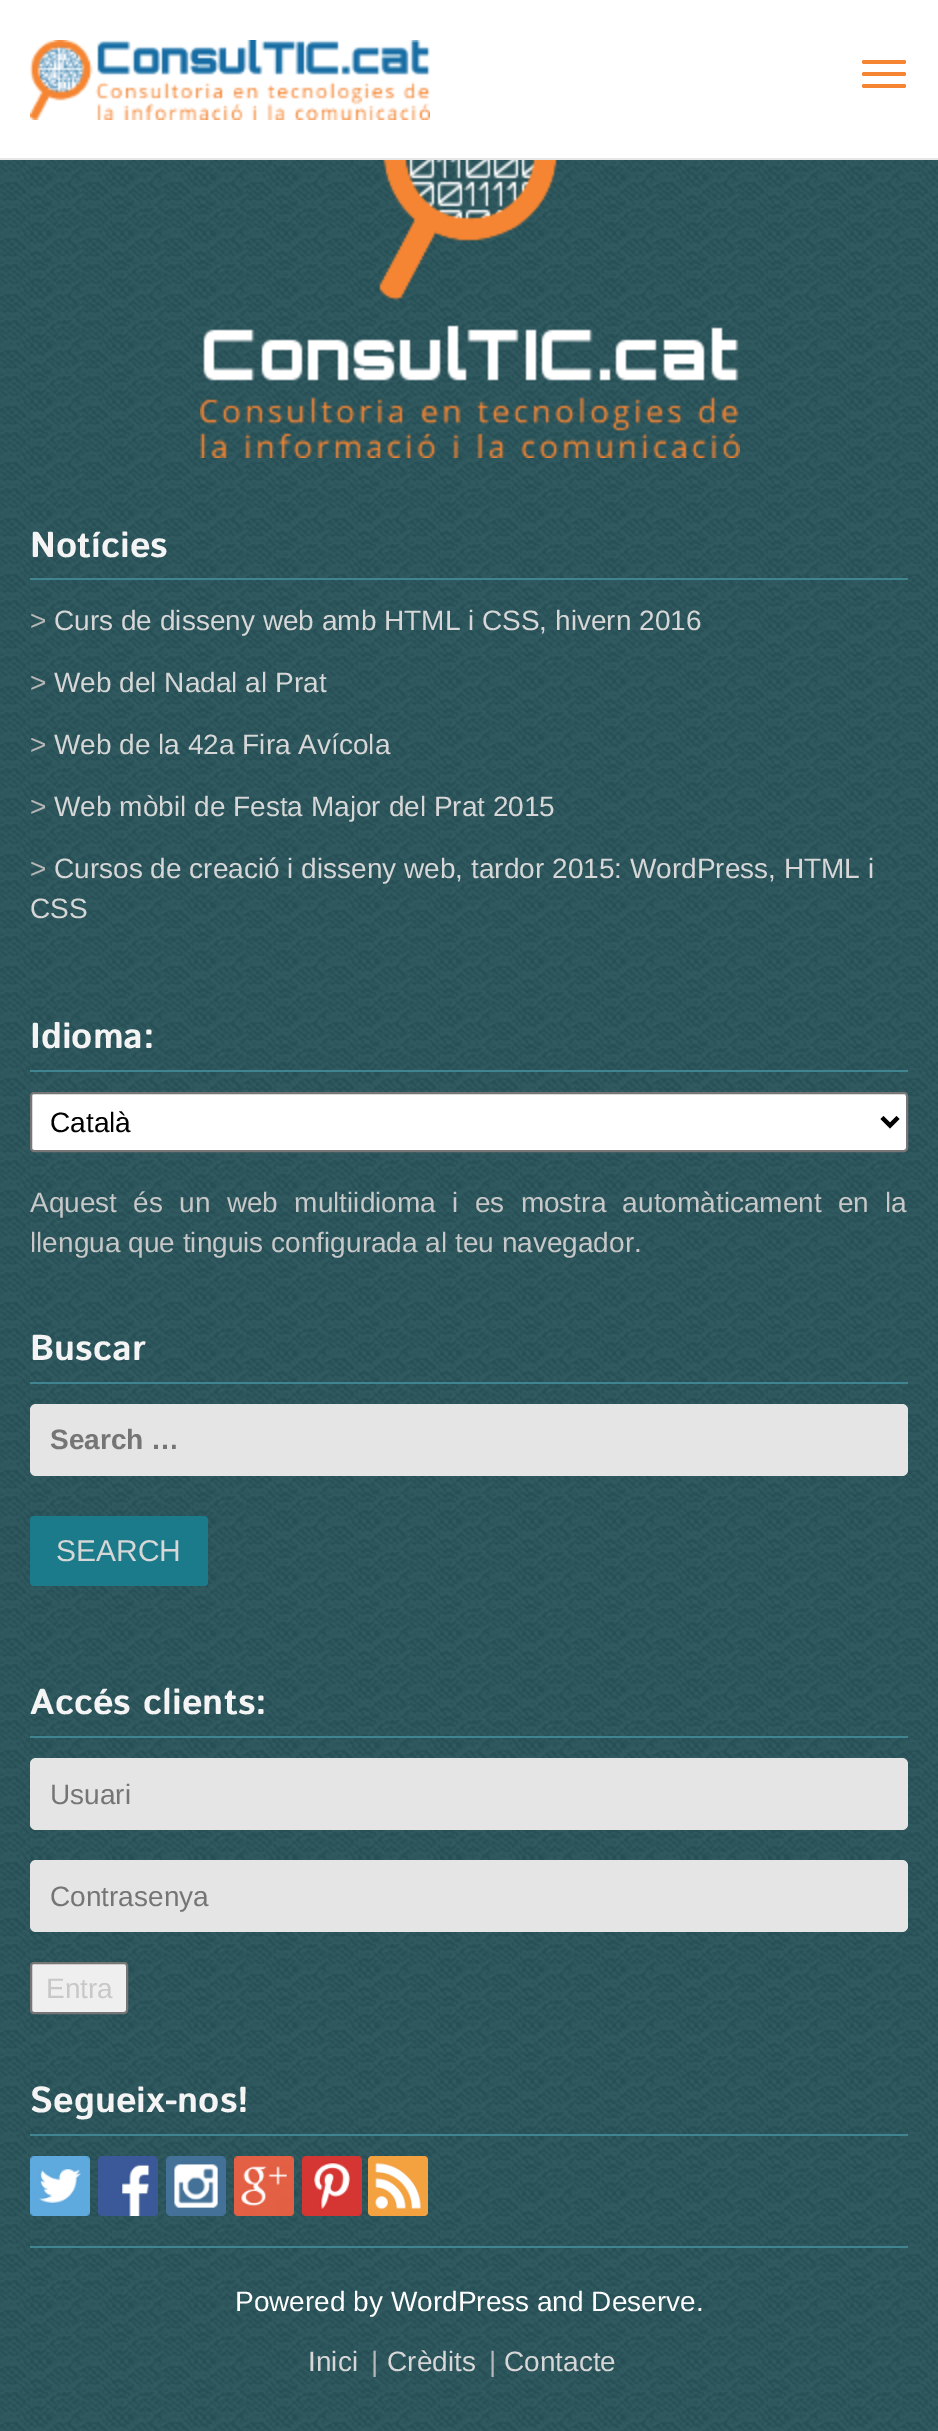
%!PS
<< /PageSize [938 2431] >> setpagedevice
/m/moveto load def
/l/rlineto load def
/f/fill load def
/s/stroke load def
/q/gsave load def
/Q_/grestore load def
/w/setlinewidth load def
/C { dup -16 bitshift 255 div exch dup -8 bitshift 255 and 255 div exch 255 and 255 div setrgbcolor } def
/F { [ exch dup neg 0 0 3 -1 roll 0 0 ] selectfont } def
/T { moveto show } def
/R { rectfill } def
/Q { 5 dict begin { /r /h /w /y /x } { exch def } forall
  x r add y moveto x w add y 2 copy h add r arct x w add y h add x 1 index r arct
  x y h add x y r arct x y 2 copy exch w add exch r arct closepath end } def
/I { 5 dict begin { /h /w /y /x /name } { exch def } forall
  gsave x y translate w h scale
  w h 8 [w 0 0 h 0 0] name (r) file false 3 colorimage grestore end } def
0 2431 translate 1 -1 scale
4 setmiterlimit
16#FFFFFF C
0 0 938 2431 R
16#E6E6E6 C
0 158 938 2 R
(1.rgb) 30 40 400 80 I
16#F58532 C
862 60 44 4 2 Q f
862 72 44 4 2 Q f
862 84 44 4 2 Q f
(2.rgb) 0 160 938 2271 I
(3.rgb) 200 160 540 298 I
16#3F848F C
30 578 878 2 R
/IstokWeb-Bold 36 F
16#F4F4F4 C
(Notícies) 30 557 T
/LiberationSans-Regular 28 F
16#B7B7B7 C
(>) 30 630 T
16#D7D7D7 C
(Curs de disseny web amb HTML i CSS, hivern 2016) 54 630 T
16#B7B7B7 C
(>) 30 692 T
16#D7D7D7 C
(Web del Nadal al Prat) 54 692 T
16#B7B7B7 C
(>) 30 754 T
16#D7D7D7 C
(Web de la 42a Fira Avícola) 54 754 T
16#B7B7B7 C
(>) 30 816 T
16#D7D7D7 C
(Web mòbil de Festa Major del Prat 2015) 54 816 T
16#B7B7B7 C
(>) 30 878 T
16#D7D7D7 C
(Cursos de creació i disseny web, tardor 2015: WordPress, HTML i) 54 878 T
(CSS) 30 918 T
16#3F848F C
30 1070 878 2 R
/IstokWeb-Bold 36 F
16#F4F4F4 C
(Idioma:) 30 1048 T
16#FFFFFF C
31 1093 876 58 3 Q q f Q_
16#767676 C
2 w
s
16#000000 C
4 w
882 1117.5 m 8 8 l 8 -8 l s
/LiberationSans-Regular 28 F
(Català) 50 1132 T
16#C8C8C8 C
30 1212 m 8.5 0 32 (Aquest és un web multiidioma i es mostra automàticament en la) widthshow
(llengua que tinguis configurada al teu navegador.) 30 1252 T
16#3F848F C
30 1382 878 2 R
/IstokWeb-Bold 36 F
16#F4F4F4 C
(Buscar) 30 1360 T
16#E5E5E5 C
30 1404 878 72 6 Q f
/LiberationSans-Bold 28 F
16#757575 C
(Search …) 50 1449 T
16#1C7B8A C
30 1516 178 70 4 Q f
/LiberationSans-Regular 30 F
16#D7D7D7 C
(SEARCH) 56 1561 T
16#3F848F C
30 1736 878 2 R
/IstokWeb-Bold 36 F
16#F4F4F4 C
(Accés clients:) 30 1714 T
16#E5E5E5 C
30 1758 878 72 6 Q f
/LiberationSans-Regular 28 F
16#757575 C
(Usuari) 50 1804 T
16#E5E5E5 C
30 1860 878 72 6 Q f
16#757575 C
(Contrasenya) 50 1906 T
16#EFEFEF C
31 1963 96 50 3 Q q f Q_
16#767676 C
2 w
s
16#C8C8C8 C
(Entra) 46 1998 T
16#3F848F C
30 2134 878 2 R
/IstokWeb-Bold 36 F
16#F4F4F4 C
(Segueix-nos!) 30 2112 T
(4.rgb) 30 2156 60 60 I
(5.rgb) 98 2156 60 60 I
(6.rgb) 166 2156 60 60 I
(7.rgb) 234 2156 60 60 I
(8.rgb) 302 2156 60 60 I
(9.rgb) 368 2156 60 60 I
16#3F848F C
30 2246 878 2 R
/LiberationSans-Regular 28 F
16#FFFFFF C
(Powered by WordPress and Deserve.) 235 2311 T
16#D7D7D7 C
(Inici) 308 2371 T
16#B7B7B7 C
(|) 371 2371 T
16#D7D7D7 C
(Crèdits) 387 2371 T
16#B7B7B7 C
(|) 489 2371 T
16#D7D7D7 C
(Contacte) 504 2371 T
showpage
